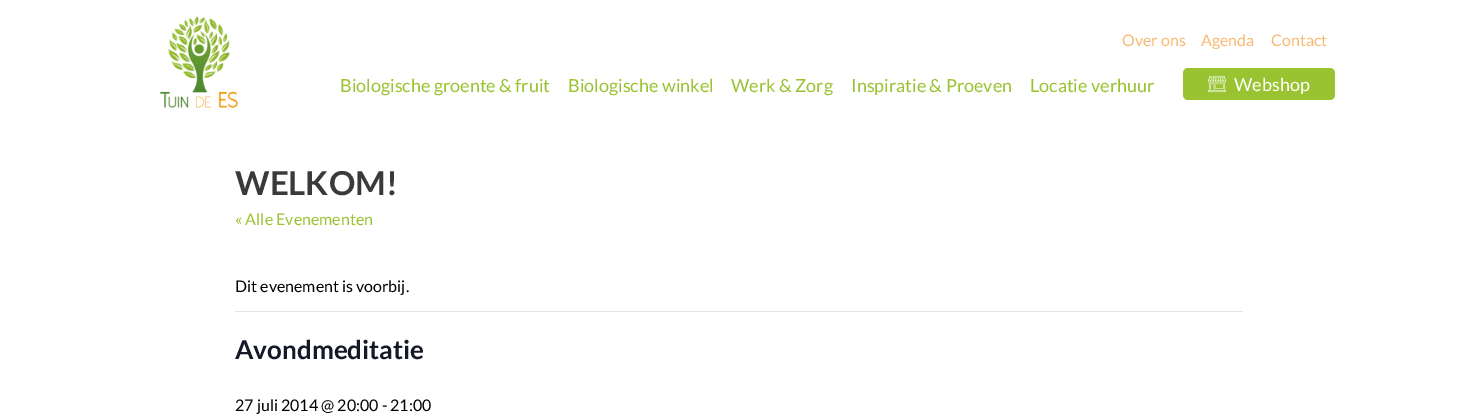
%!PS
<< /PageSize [1478 418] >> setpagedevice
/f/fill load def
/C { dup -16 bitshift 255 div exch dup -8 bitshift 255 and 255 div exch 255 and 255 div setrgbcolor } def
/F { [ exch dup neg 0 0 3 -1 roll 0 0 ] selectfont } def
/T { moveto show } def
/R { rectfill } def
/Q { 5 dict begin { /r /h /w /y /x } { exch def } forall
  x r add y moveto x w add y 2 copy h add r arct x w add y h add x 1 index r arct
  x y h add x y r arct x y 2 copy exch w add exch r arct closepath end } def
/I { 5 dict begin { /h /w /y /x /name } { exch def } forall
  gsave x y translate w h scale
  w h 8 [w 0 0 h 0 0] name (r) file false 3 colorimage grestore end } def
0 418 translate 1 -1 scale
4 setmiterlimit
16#FFFFFF C
0 0 1478 418 R
(1.rgb) 160 16 78 92 I
/Lato-Regular 16 F
16#F8B972 C
(Over ons) 1122 46 T
(Agenda) 1201 46 T
(Contact) 1271 46 T
/Lato-Regular 18 F
16#9AC331 C
(Biologische groente & fruit) 340 92 T
(Biologische winkel) 568 92 T
(Werk & Zorg) 731 92 T
(Inspiratie & Proeven) 851 92 T
(Locatie verhuur) 1030 92 T
1183 68 152 32 5 Q f
(2.rgb) 1208 75 18 18 I
16#FFFFFF C
(Webshop) 1234 91 T
/Lato-Bold 33 F
16#3A3A3A C
(WELKOM!) 235 195 T
/Lato-Regular 16 F
16#9AC331 C
(« Alle Evenementen) 235 225 T
16#E4E4E4 C
235 311 1008 1 R
16#000000 C
(Dit evenement is voorbij.) 235 292 T
/Lato-Bold 26 F
16#141827 C
(Avondmeditatie) 235 359 T
/Lato-Regular 16 F
16#000000 C
(27 juli 2014 @ 20:00 - 21:00) 235 411 T
showpage
